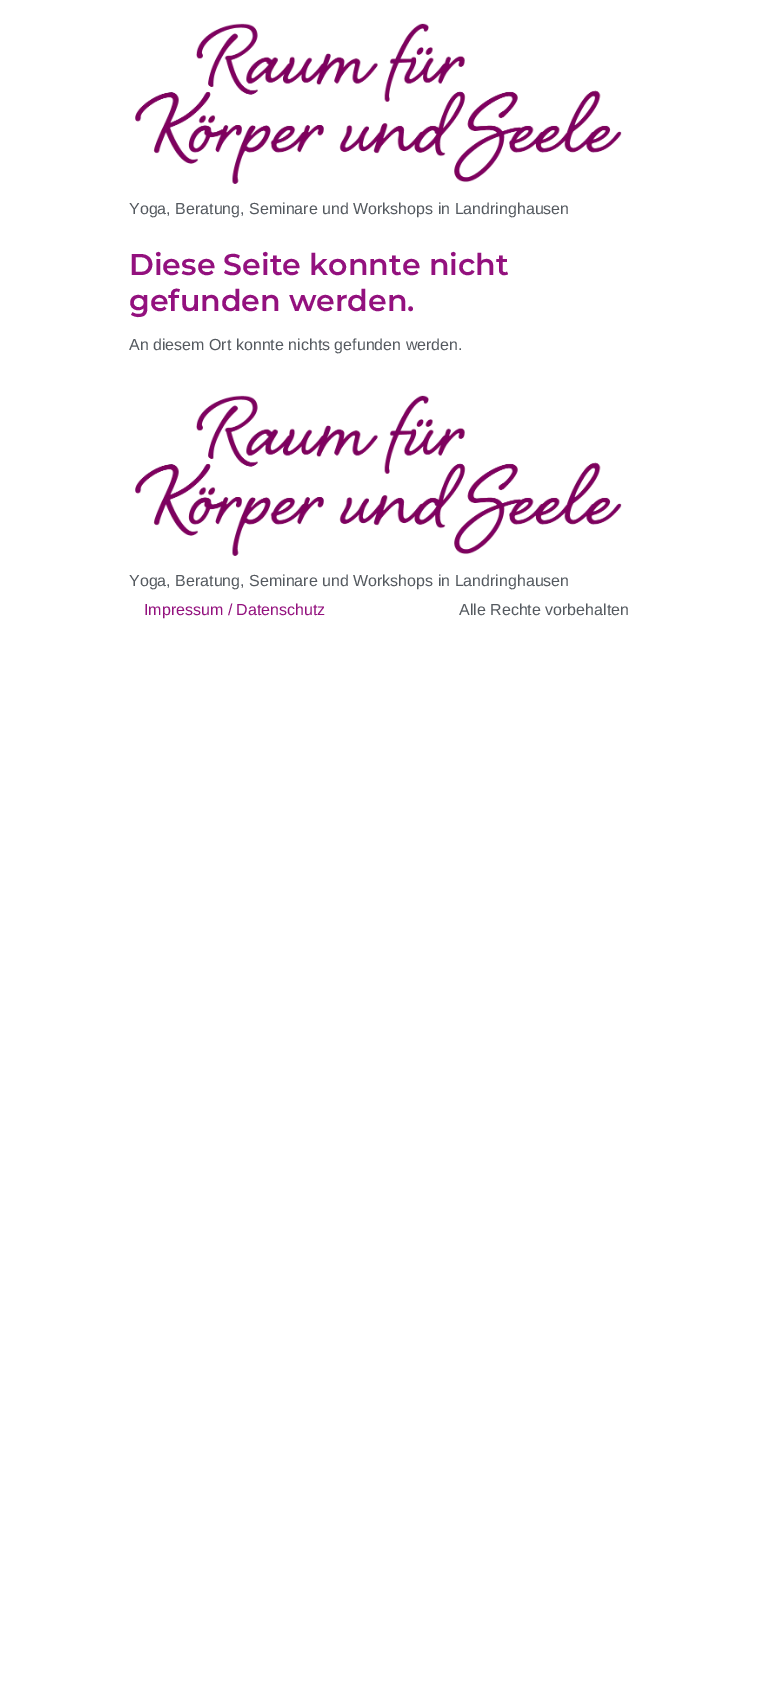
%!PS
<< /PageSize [757 1703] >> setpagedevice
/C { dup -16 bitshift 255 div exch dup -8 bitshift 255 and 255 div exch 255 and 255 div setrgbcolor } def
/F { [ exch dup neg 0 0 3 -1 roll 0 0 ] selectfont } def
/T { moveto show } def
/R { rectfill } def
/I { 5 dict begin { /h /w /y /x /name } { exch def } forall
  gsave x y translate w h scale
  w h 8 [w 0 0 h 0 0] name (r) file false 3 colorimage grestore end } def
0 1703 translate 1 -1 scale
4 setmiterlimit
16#FFFFFF C
0 0 757 1703 R
(1.rgb) 135 23 487 161 I
/LiberationSans-Regular 16 F
16#54595F C
(Yoga, Beratung, Seminare und Workshops in Landringhausen) 129 214 T
/Montserrat-SemiBold 30 F
16#93117E C
(Diese Seite konnte nicht) 129 275 T
(gefunden werden.) 129 311 T
/LiberationSans-Regular 16 F
16#54595F C
(An diesem Ort konnte nichts gefunden werden.) 129 350 T
(1.rgb) 135 395 487 161 I
(Yoga, Beratung, Seminare und Workshops in Landringhausen) 129 586 T
16#93117E C
(Impressum / Datenschutz) 144 615 T
16#54595F C
(Alle Rechte vorbehalten) 459 615 T
showpage
